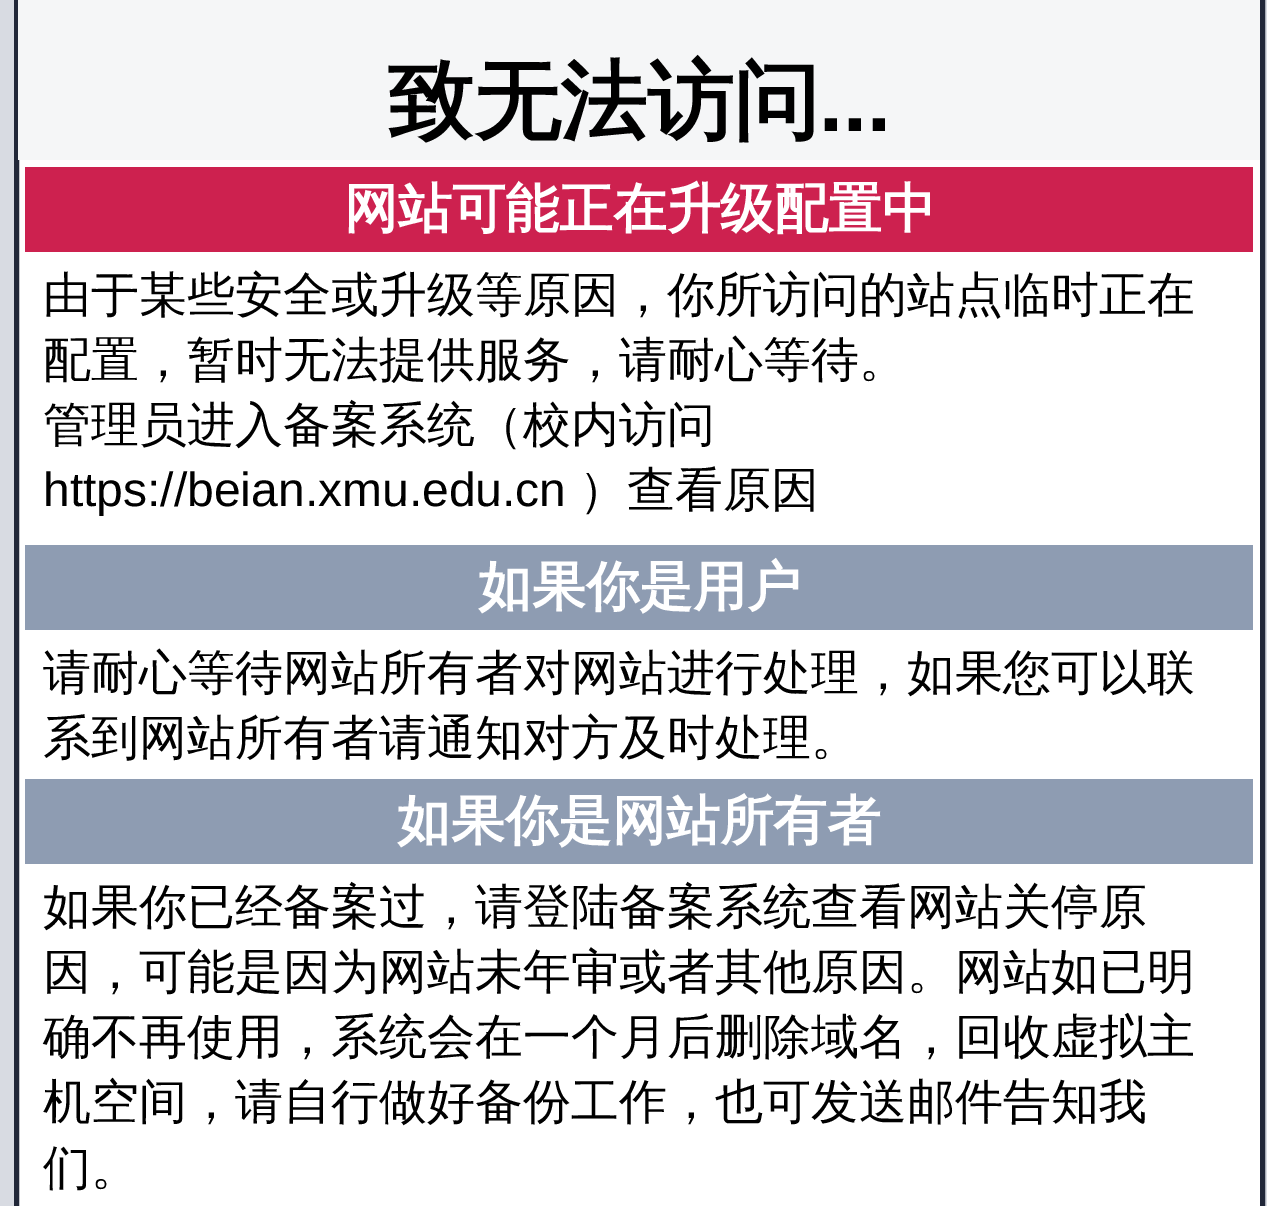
%!PS
<< /PageSize [1267 1206] >> setpagedevice
/w/setlinewidth load def
/C { dup -16 bitshift 255 div exch dup -8 bitshift 255 and 255 div exch 255 and 255 div setrgbcolor } def
/F { [ exch dup neg 0 0 3 -1 roll 0 0 ] selectfont } def
/T { moveto show } def
/R { rectfill } def
0 1206 translate 1 -1 scale
4 setmiterlimit
16#D8DBE2 C
0 0 1267 1206 R
16#FFFFFF C
19 160 1241 1046 R
16#212738 C
5 w
16.5 -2.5 1246 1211 rectstroke
16#F5F6F7 C
18 0 1242 160 R
/WenQuanYiZenHei-Bold 86.5 F
16#000000 C
(致无法访问) 387 131 T
/LiberationSans-Bold 86.5 F
(...) 819 131 T
16#CD214F C
25 167 1228 85 R
/WenQuanYiZenHei-Bold 53.75 F
16#FFFFFF C
(网站可能正在升级配置中) 344 227 T
/WenQuanYiZenHei-Medium 48 F
16#000000 C
(由于某些安全或升级等原因，你所访问的站点临时正在) 43 311 T
(配置，暂时无法提供服务，请耐心等待。) 43 376 T
(管理员进入备案系统（校内访问) 43 441 T
/LiberationSans-Regular 48 F
(https://beian.xmu.edu.cn) 43 506 T
/WenQuanYiZenHei-Medium 48 F
(）查看原因) 579 506 T
16#8E9CB2 C
25 545 1228 85 R
/WenQuanYiZenHei-Bold 53.75 F
16#FFFFFF C
(如果你是用户) 478 605 T
/WenQuanYiZenHei-Medium 48 F
16#000000 C
(请耐心等待网站所有者对网站进行处理，如果您可以联) 43 689 T
(系到网站所有者请通知对方及时处理。) 43 754 T
16#8E9CB2 C
25 779 1228 85 R
/WenQuanYiZenHei-Bold 53.75 F
16#FFFFFF C
(如果你是网站所有者) 397 839 T
/WenQuanYiZenHei-Medium 48 F
16#000000 C
(如果你已经备案过，请登陆备案系统查看网站关停原) 43 923 T
(因，可能是因为网站未年审或者其他原因。网站如已明) 43 988 T
(确不再使用，系统会在一个月后删除域名，回收虚拟主) 43 1053 T
(机空间，请自行做好备份工作，也可发送邮件告知我) 43 1118 T
(们。) 43 1184 T
showpage
